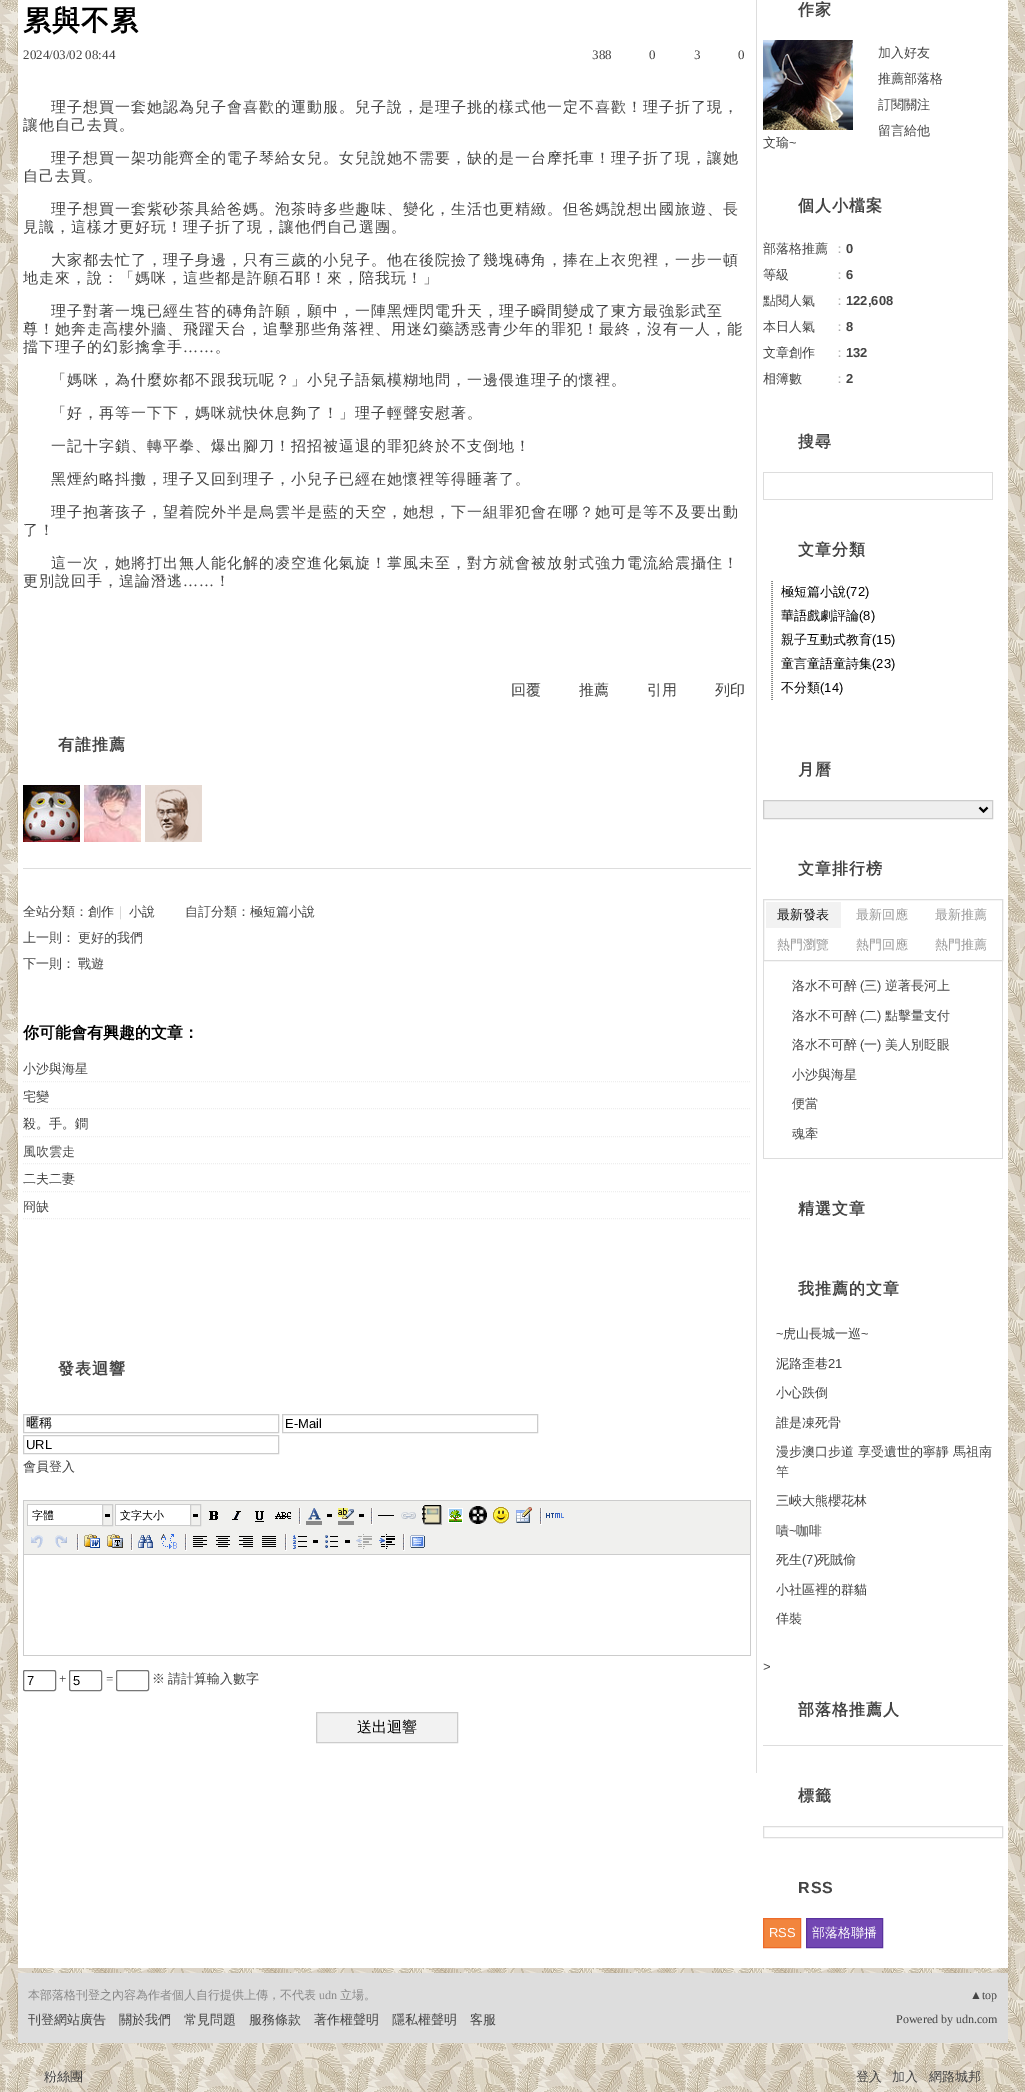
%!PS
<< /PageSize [1025 2092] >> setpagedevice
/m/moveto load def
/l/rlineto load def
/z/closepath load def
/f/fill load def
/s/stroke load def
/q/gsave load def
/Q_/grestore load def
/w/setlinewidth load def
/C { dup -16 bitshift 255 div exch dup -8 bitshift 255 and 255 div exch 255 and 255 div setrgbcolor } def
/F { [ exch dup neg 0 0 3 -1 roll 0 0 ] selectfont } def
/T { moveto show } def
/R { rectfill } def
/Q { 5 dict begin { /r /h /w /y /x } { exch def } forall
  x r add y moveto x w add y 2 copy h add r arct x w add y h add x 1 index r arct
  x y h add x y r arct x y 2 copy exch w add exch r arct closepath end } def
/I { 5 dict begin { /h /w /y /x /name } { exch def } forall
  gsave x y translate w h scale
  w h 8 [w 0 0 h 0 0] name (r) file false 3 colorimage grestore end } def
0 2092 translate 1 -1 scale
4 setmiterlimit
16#FFFFFF C
0 0 1025 2092 R
(1.rgb) 0 0 1025 2092 I
18 0 990 1968 R
16#DDDDDD C
756 0 1 1773 R
/WenQuanYiZenHei-Bold 28 F
16#000000 C
23 30 m 1 0 (累與不累) ashow
/LiberationSerif-Regular 13 F
16#444444 C
(2024/03/02 08:44) 23 59 T
(388) 592 59 T
(0) 649 59 T
(3) 694 59 T
(0) 738 59 T
/WenQuanYiZenHei-Medium 15 F
51 112 m 1 0 (理子想買一套她認為兒子會喜歡的運動服。兒子說，是理子挑的樣式他一定不喜歡！理子折了現，) ashow
23 130 m 1 0 (讓他自己去買。) ashow
51 163 m 1 0 (理子想買一架功能齊全的電子琴給女兒。女兒說她不需要，缺的是一台摩托車！理子折了現，讓她) ashow
23 181 m 1 0 (自己去買。) ashow
51 214 m 1 0 (理子想買一套紫砂茶具給爸媽。泡茶時多些趣味、變化，生活也更精緻。但爸媽說想出國旅遊、長) ashow
23 232 m 1 0 (見識，這樣才更好玩！理子折了現，讓他們自己選團。) ashow
51 265 m 1 0 (大家都去忙了，理子身邊，只有三歲的小兒子。他在後院撿了幾塊磚角，捧在上衣兜裡，一步一頓) ashow
23 283 m 1 0 (地走來，說：「媽咪，這些都是許願石耶！來，陪我玩！」) ashow
51 316 m 1 0 (理子對著一塊已經生苔的磚角許願，願中，一陣黑煙閃電升天，理子瞬間變成了東方最強影武至) ashow
23 334 m 1 0 (尊！她奔走高樓外牆、飛躍天台，追擊那些角落裡、用迷幻藥誘惑青少年的罪犯！最終，沒有一人，能) ashow
23 352 m 1 0 (擋下理子的幻影擒拿手) ashow
/LiberationSerif-Regular 15 F
183 352 m 1 0 (……) ashow
/WenQuanYiZenHei-Medium 15 F
215 352 m 1 0 (。) ashow
51 385 m 1 0 (「媽咪，為什麼妳都不跟我玩呢？」小兒子語氣模糊地問，一邊偎進理子的懷裡。) ashow
51 418 m 1 0 (「好，再等一下下，媽咪就快休息夠了！」理子輕聲安慰著。) ashow
51 451 m 1 0 (一記十字鎖、轉平拳、爆出腳刀！招招被逼退的罪犯終於不支倒地！) ashow
51 484 m 1 0 (黑煙約略抖擻，理子又回到理子，小兒子已經在她懷裡等得睡著了。) ashow
51 517 m 1 0 (理子抱著孩子，望着院外半是烏雲半是藍的天空，她想，下一組罪犯會在哪？她可是等不及要出動) ashow
23 535 m 1 0 (了！) ashow
51 568 m 1 0 (這一次，她將打出無人能化解的凌空進化氣旋！掌風未至，對方就會被放射式強力電流給震攝住！) ashow
23 586 m 1 0 (更別說回手，遑論潛逃) ashow
/LiberationSerif-Regular 15 F
183 586 m 1 0 (……) ashow
/WenQuanYiZenHei-Medium 15 F
215 586 m 1 0 (！) ashow
(回覆) 511 695 T
(推薦) 579 695 T
(引用) 647 695 T
(列印) 715 695 T
/WenQuanYiZenHei-Bold 16 F
58 750 m 1 0 (有誰推薦) ashow
(2.rgb) 23 785 57 57 I
(3.rgb) 84 785 57 57 I
(4.rgb) 145 785 57 57 I
16#DDDDDD C
23 868 728 1 R
/WenQuanYiZenHei-Medium 13 F
16#444444 C
(全站分類：創作) 23 916 T
16#CCCCCC C
(｜) 114 916 T
16#444444 C
(小說) 129 916 T
(自訂分類：極短篇小說) 185 916 T
(上一則：) 23 942 T
(更好的我們) 78 942 T
(下一則：) 23 968 T
(戰遊) 78 968 T
/WenQuanYiZenHei-Bold 16 F
16#000000 C
(你可能會有興趣的文章：) 23 1038 T
16#EEEEEE C
[1 1] 0 setdash
23 1081.5 m 728 0 l s
/WenQuanYiZenHei-Medium 13 F
16#444444 C
(小沙與海星) 23 1073 T
16#EEEEEE C
23 1108.5 m 728 0 l s
16#444444 C
(宅變) 23 1101 T
16#EEEEEE C
23 1136.5 m 728 0 l s
16#444444 C
(殺。手。鐧) 23 1128 T
16#EEEEEE C
23 1163.5 m 728 0 l s
16#444444 C
(風吹雲走) 23 1156 T
16#EEEEEE C
23 1191.5 m 728 0 l s
16#444444 C
(二夫二妻) 23 1183 T
16#EEEEEE C
23 1218.5 m 728 0 l s
16#444444 C
(冏缺) 23 1211 T
/WenQuanYiZenHei-Bold 16 F
58 1374 m 1 0 (發表迴響) ashow
16#CCCCCC C
[] 0 setdash
23.5 1414.5 255 18 rectstroke
/WenQuanYiZenHei-Medium 13 F
16#000000 C
(暱稱) 26 1427 T
16#CCCCCC C
282.5 1414.5 255 18 rectstroke
/LiberationSans-Regular 13 F
16#000000 C
(E-Mail) 285 1428 T
16#CCCCCC C
23.5 1435.5 255 18 rectstroke
16#000000 C
(URL) 26 1449 T
/WenQuanYiZenHei-Medium 13 F
16#444444 C
(會員登入) 23 1471 T
16#CCCCCC C
750 1500 1 156 R
23 1500 1 156 R
16#F0F0EE C
24 1501 726 53 R
16#CCCCCC C
24 1500 726 1 R
16#FFFFFF C
28 1505 74 20 R
16#CCCCCC C
27 1504 75 1 R
27 1525 75 1 R
27 1504 1 22 R
/WenQuanYiZenHei-Medium 11 F
16#000000 C
(字體) 32 1519 T
105 1514 5 3 R
16#CCCCCC C
102.5 1504.5 10 21 rectstroke
16#FFFFFF C
116 1505 74 20 R
16#CCCCCC C
115 1504 75 1 R
115 1525 75 1 R
115 1504 1 22 R
16#000000 C
(文字大小) 120 1519 T
193 1514 5 3 R
16#CCCCCC C
190.5 1504.5 10 21 rectstroke
(5.rgb) 209 1511 9 9 I
(6.rgb) 232 1511 9 9 I
(7.rgb) 255 1511 9 11 I
(8.rgb) 275 1512 16 7 I
(9.rgb) 299 1508 2 17 I
(10.rgb) 308 1508 13 12 I
16#888888 C
306 1521 16 4 R
16#000000 C
327 1514 5 3 R
(11.rgb) 338 1508 16 11 I
16#888888 C
338 1521 16 4 R
16#000000 C
359 1514 5 3 R
(9.rgb) 371 1508 2 17 I
378 1515 16 1 R
(12.rgb) 401 1512 15 7 I
(13.rgb) 422 1505 20 20 I
(14.rgb) 422 1505 20 20 I
(15.rgb) 448 1508 15 15 I
(16.rgb) 469 1506 18 18 I
(17.rgb) 469 1506 18 18 I
(18.rgb) 493 1507 16 17 I
(19.rgb) 516 1507 16 16 I
(9.rgb) 540 1508 2 17 I
(20.rgb) 546 1513 18 5 I
(21.rgb) 31 1535 12 13 I
(22.rgb) 55 1535 12 13 I
(9.rgb) 77 1534 2 17 I
(23.rgb) 84 1534 16 14 I
(24.rgb) 107 1534 16 14 I
(9.rgb) 131 1534 2 17 I
(25.rgb) 138 1535 15 13 I
(26.rgb) 161 1534 16 15 I
(9.rgb) 185 1534 2 17 I
(27.rgb) 193 1536 14 11 I
(28.rgb) 216 1536 14 11 I
(29.rgb) 239 1536 14 11 I
(30.rgb) 262 1536 14 11 I
(9.rgb) 285 1534 2 17 I
(31.rgb) 293 1535 14 14 I
313 1540 5 3 R
(32.rgb) 325 1535 13 13 I
345 1540 5 3 R
(33.rgb) 356 1534 16 15 I
(34.rgb) 379 1534 16 15 I
(9.rgb) 403 1534 2 17 I
(35.rgb) 410 1535 15 13 I
16#CCCCCC C
24 1554 726 1 R
24 1655 726 1 R
16#767676 C
23.5 1670.5 32 20 1.5 Q s
/LiberationSans-Regular 13 F
16#000000 C
(7) 27 1685 T
/LiberationSerif-Regular 13 F
16#444444 C
(+) 59 1683 T
16#767676 C
69.5 1670.5 32 20 1.5 Q s
/LiberationSans-Regular 13 F
16#000000 C
(5) 73 1685 T
/LiberationSerif-Regular 13 F
16#444444 C
(=) 106 1683 T
16#767676 C
116.5 1670.5 32 20 1.5 Q s
/WenQuanYiZenHei-Medium 13 F
16#444444 C
152 1683 m -1 0 32 (※ 請計算輸入數字) widthshow
16#F2F2F2 C
316.5 1712.5 m 141 0 l 0 30 l -141 0 l z q f Q_
16#CCCCCC C
s
/WenQuanYiZenHei-Medium 15 F
16#000000 C
(送出迴響) 357 1732 T
/WenQuanYiZenHei-Bold 16 F
16#444444 C
798 15 m 1 0 (作家) ashow
/WenQuanYiZenHei-Medium 13 F
(加入好友) 878 57 T
(推薦部落格) 878 83 T
(訂閱關注) 878 109 T
(留言給他) 878 135 T
(36.rgb) 763 40 90 90 I
(文瑜) 763 147 T
/LiberationSans-Regular 13 F
(~) 789 147 T
/WenQuanYiZenHei-Bold 16 F
798 211 m 1 0 (個人小檔案) ashow
/WenQuanYiZenHei-Medium 13 F
(部落格推薦) 763 253 T
16#AAAAAA C
(：) 833 253 T
/LiberationSans-Bold 13 F
16#444444 C
(0) 846 253 T
/WenQuanYiZenHei-Medium 13 F
(等級) 763 279 T
16#AAAAAA C
(：) 833 279 T
/LiberationSans-Bold 13 F
16#444444 C
(6) 846 279 T
/WenQuanYiZenHei-Medium 13 F
(點閱人氣) 763 305 T
16#AAAAAA C
(：) 833 305 T
/LiberationSans-Bold 13 F
16#444444 C
(122,608) 846 305 T
/WenQuanYiZenHei-Medium 13 F
(本日人氣) 763 331 T
16#AAAAAA C
(：) 833 331 T
/LiberationSans-Bold 13 F
16#444444 C
(8) 846 331 T
/WenQuanYiZenHei-Medium 13 F
(文章創作) 763 357 T
16#AAAAAA C
(：) 833 357 T
/LiberationSans-Bold 13 F
16#444444 C
(132) 846 357 T
/WenQuanYiZenHei-Medium 13 F
(相簿數) 763 383 T
16#AAAAAA C
(：) 833 383 T
/LiberationSans-Bold 13 F
16#444444 C
(2) 846 383 T
/WenQuanYiZenHei-Bold 16 F
798 447 m 1 0 (搜尋) ashow
16#DDDDDD C
763 472 230 1 R
763 499 195 1 R
763 472 1 28 R
992 472 1 28 R
958 499 35 1 R
16#444444 C
798 555 m 1 0 (文章分類) ashow
(37.rgb) 771 581 2 23 I
/WenQuanYiZenHei-Medium 13 F
16#000000 C
(極短篇小說) 781 596 T
/LiberationSans-Regular 13 F
(\(72\)) 846 596 T
(37.rgb) 771 605 2 23 I
/WenQuanYiZenHei-Medium 13 F
(華語戲劇評論) 781 620 T
/LiberationSans-Regular 13 F
(\(8\)) 859 620 T
(37.rgb) 771 629 2 23 I
/WenQuanYiZenHei-Medium 13 F
(親子互動式教育) 781 644 T
/LiberationSans-Regular 13 F
(\(15\)) 872 644 T
(37.rgb) 771 653 2 23 I
/WenQuanYiZenHei-Medium 13 F
(童言童語童詩集) 781 668 T
/LiberationSans-Regular 13 F
(\(23\)) 872 668 T
(37.rgb) 771 677 2 23 I
/WenQuanYiZenHei-Medium 13 F
(不分類) 781 692 T
/LiberationSans-Regular 13 F
(\(14\)) 820 692 T
/WenQuanYiZenHei-Bold 16 F
16#444444 C
798 775 m 1 0 (月曆) ashow
16#EFEFEF C
763.5 800.5 m 229 0 l 0 18 l -229 0 l z q f Q_
16#CCCCCC C
s
16#000000 C
2 w
979.5 807.5 m 4 4 l 4 -4 l s
16#444444 C
798 874 m 1 0 (文章排行榜) ashow
16#DDDDDD C
1 w
763.5 899.5 239 61 rectstroke
16#F2F2F2 C
766 902 75 26 R
/WenQuanYiZenHei-Medium 13 F
16#111111 C
(最新發表) 777 919 T
16#999999 C
(最新回應) 856 919 T
(最新推薦) 935 919 T
(熱門瀏覽) 777 949 T
(熱門回應) 856 949 T
(熱門推薦) 935 949 T
16#DDDDDD C
1002 961 1 198 R
763 1158 240 1 R
763 961 1 198 R
16#444444 C
(洛水不可醉) 792 990 T
/LiberationSans-Regular 13 F
(\() 860 990 T
/WenQuanYiZenHei-Medium 13 F
(三) 864 990 T
/LiberationSans-Regular 13 F
(\)) 877 990 T
/WenQuanYiZenHei-Medium 13 F
(逆著長河上) 885 990 T
(洛水不可醉) 792 1020 T
/LiberationSans-Regular 13 F
(\() 860 1020 T
/WenQuanYiZenHei-Medium 13 F
(二) 864 1020 T
/LiberationSans-Regular 13 F
(\)) 877 1020 T
/WenQuanYiZenHei-Medium 13 F
(點擊量支付) 885 1020 T
(洛水不可醉) 792 1049 T
/LiberationSans-Regular 13 F
(\() 860 1049 T
/WenQuanYiZenHei-Medium 13 F
(一) 864 1049 T
/LiberationSans-Regular 13 F
(\)) 877 1049 T
/WenQuanYiZenHei-Medium 13 F
(美人別眨眼) 885 1049 T
(小沙與海星) 792 1079 T
(便當) 792 1108 T
(魂牽) 792 1138 T
/WenQuanYiZenHei-Bold 16 F
798 1214 m 1 0 (精選文章) ashow
798 1294 m 1 0 (我推薦的文章) ashow
/LiberationSans-Regular 13 F
(~) 776 1338 T
/WenQuanYiZenHei-Medium 13 F
(虎山長城一巡) 783 1338 T
/LiberationSans-Regular 13 F
(~) 861 1338 T
/WenQuanYiZenHei-Medium 13 F
(泥路歪巷) 776 1368 T
/LiberationSans-Regular 13 F
(21) 828 1368 T
/WenQuanYiZenHei-Medium 13 F
(小心跌倒) 776 1397 T
(誰是凍死骨) 776 1427 T
(漫步澳口步道 享受遺世的寧靜 馬祖南) 776 1456 T
(竿) 776 1476 T
(三峽大熊櫻花林) 776 1505 T
(嘖) 776 1535 T
/LiberationSans-Regular 13 F
(~) 789 1535 T
/WenQuanYiZenHei-Medium 13 F
(咖啡) 796 1535 T
(死生) 776 1564 T
/LiberationSans-Regular 13 F
(\(7\)) 802 1564 T
/WenQuanYiZenHei-Medium 13 F
(死賊偷) 817 1564 T
(小社區裡的群貓) 776 1594 T
(佯裝) 776 1623 T
/LiberationSans-Regular 13 F
(>) 763 1671 T
/WenQuanYiZenHei-Bold 16 F
798 1715 m 1 0 (部落格推薦人) ashow
16#DDDDDD C
763 1745 240 1 R
16#444444 C
798 1801 m 1 0 (標籤) ashow
16#DDDDDD C
763.5 1826.5 239 11 rectstroke
/LiberationSans-Bold 16 F
16#444444 C
798 1893 m 1 0 (RSS) ashow
16#F2853D C
763.5 1918.5 m 37 0 l 0 29 l -37 0 l z q f Q_
16#ED6B2A C
s
/LiberationSans-Regular 13 F
16#FFFFFF C
(RSS) 769 1937 T
16#7247B3 C
806.5 1918.5 m 76 0 l 0 29 l -76 0 l z q f Q_
16#59329E C
s
/WenQuanYiZenHei-Medium 13 F
16#FFFFFF C
(部落格聯播) 812 1937 T
16#DDDDDD C
18 1973 990 70 R
/WenQuanYiZenHei-Medium 12 F
16#888888 C
(本部落格刊登之內容為作者個人自行提供上傳，不代表) 28 1999 T
/LiberationSerif-Regular 12 F
(udn) 319 1999 T
/WenQuanYiZenHei-Medium 12 F
(立場。) 340 1999 T
/LiberationSerif-Regular 12 F
16#444444 C
(▲top) 970 1999 T
/WenQuanYiZenHei-Medium 13 F
(刊登網站廣告) 28 2024 T
(關於我們) 119 2024 T
(常見問題) 184 2024 T
(服務條款) 249 2024 T
(著作權聲明) 314 2024 T
(隱私權聲明) 392 2024 T
(客服) 470 2024 T
/LiberationSerif-Regular 12 F
(Powered by udn.com) 896 2023 T
/WenQuanYiZenHei-Medium 13 F
(粉絲團) 44 2081 T
(登入) 856 2081 T
(加入) 892 2081 T
(網路城邦) 929 2081 T
showpage
